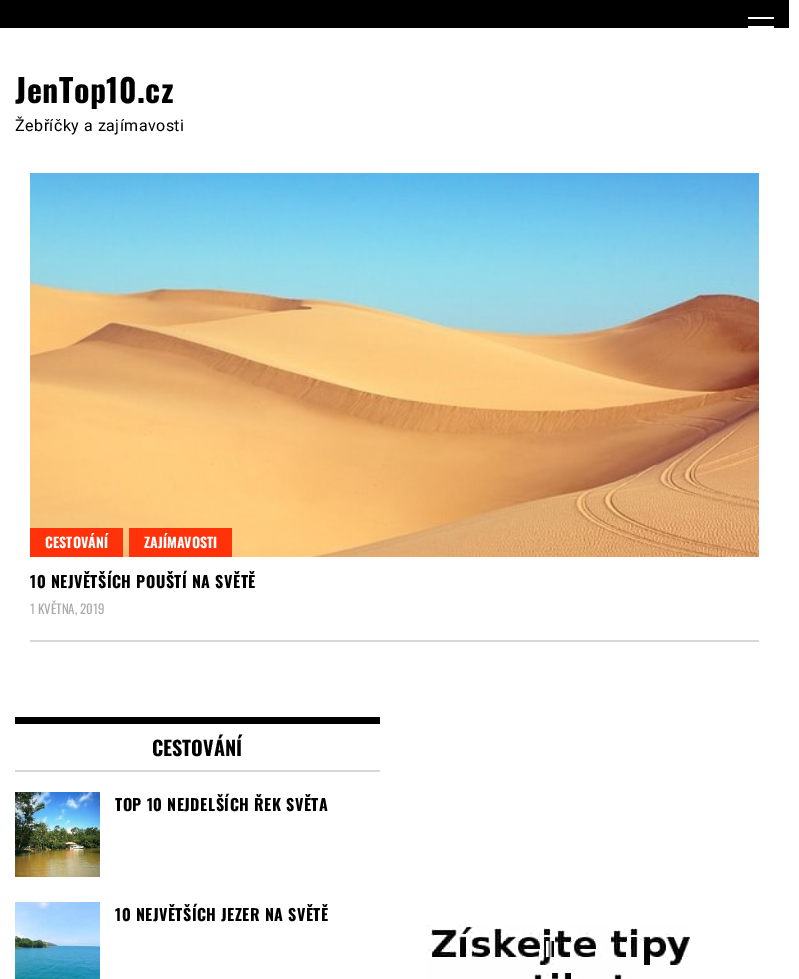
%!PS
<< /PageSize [799 979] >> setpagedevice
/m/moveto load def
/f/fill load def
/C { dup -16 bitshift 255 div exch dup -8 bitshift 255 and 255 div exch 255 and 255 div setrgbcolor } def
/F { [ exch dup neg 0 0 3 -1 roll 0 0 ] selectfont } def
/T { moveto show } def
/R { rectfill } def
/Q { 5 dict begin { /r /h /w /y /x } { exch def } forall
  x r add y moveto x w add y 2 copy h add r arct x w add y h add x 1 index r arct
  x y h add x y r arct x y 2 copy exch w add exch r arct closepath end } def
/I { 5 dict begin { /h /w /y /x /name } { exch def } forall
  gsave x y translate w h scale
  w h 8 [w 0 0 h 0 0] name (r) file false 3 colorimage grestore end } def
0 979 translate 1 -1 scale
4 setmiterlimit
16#FFFFFF C
0 0 799 979 R
16#000000 C
0 0 789 28 R
16#FFFFFF C
748 26 26 2 1 Q f
748 17 26 2 1 Q f
/Oswald-Bold 32 F
16#000000 C
15 103 m .5 0 (JenTop10.cz) ashow
/Roboto-Regular 16 F
15 131 m .5 0 (Žebříčky a zajímavosti) ashow
16#D7D7D7 C
30 640 729 2 R
(1.rgb) 30 173 729 384 I
16#FF3209 C
30 528 93 29 R
/Oswald-Bold 14 F
16#FFFFFF C
(CESTOVÁNÍ) 45 548 T
16#FF3209 C
129 528 103 29 R
16#FFFFFF C
(ZAJÍMAVOSTI) 144 548 T
/Oswald-Bold 16 F
16#000000 C
30 588 m .5 0 (10 NEJVĚTŠÍCH POUŠTÍ NA SVĚTĚ) ashow
/Oswald-Regular 13 F
16#ABABAB C
(1 KVĚTNA, 2019) 30 614 T
16#000000 C
15 717 365 7 R
16#D7D7D7 C
15 770 365 2 R
/Oswald-Bold 20 F
16#000000 C
(CESTOVÁNÍ) 152 756 T
(2.rgb) 15 792 85 85 I
/Oswald-Bold 16 F
115 811 m .5 0 (TOP 10 NEJDELŠÍCH ŘEK SVĚTA) ashow
(3.rgb) 15 902 85 77 I
115 921 m .5 0 (10 NEJVĚTŠÍCH JEZER NA SVĚTĚ) ashow
(4.rgb) 426 925 264 54 I
showpage
